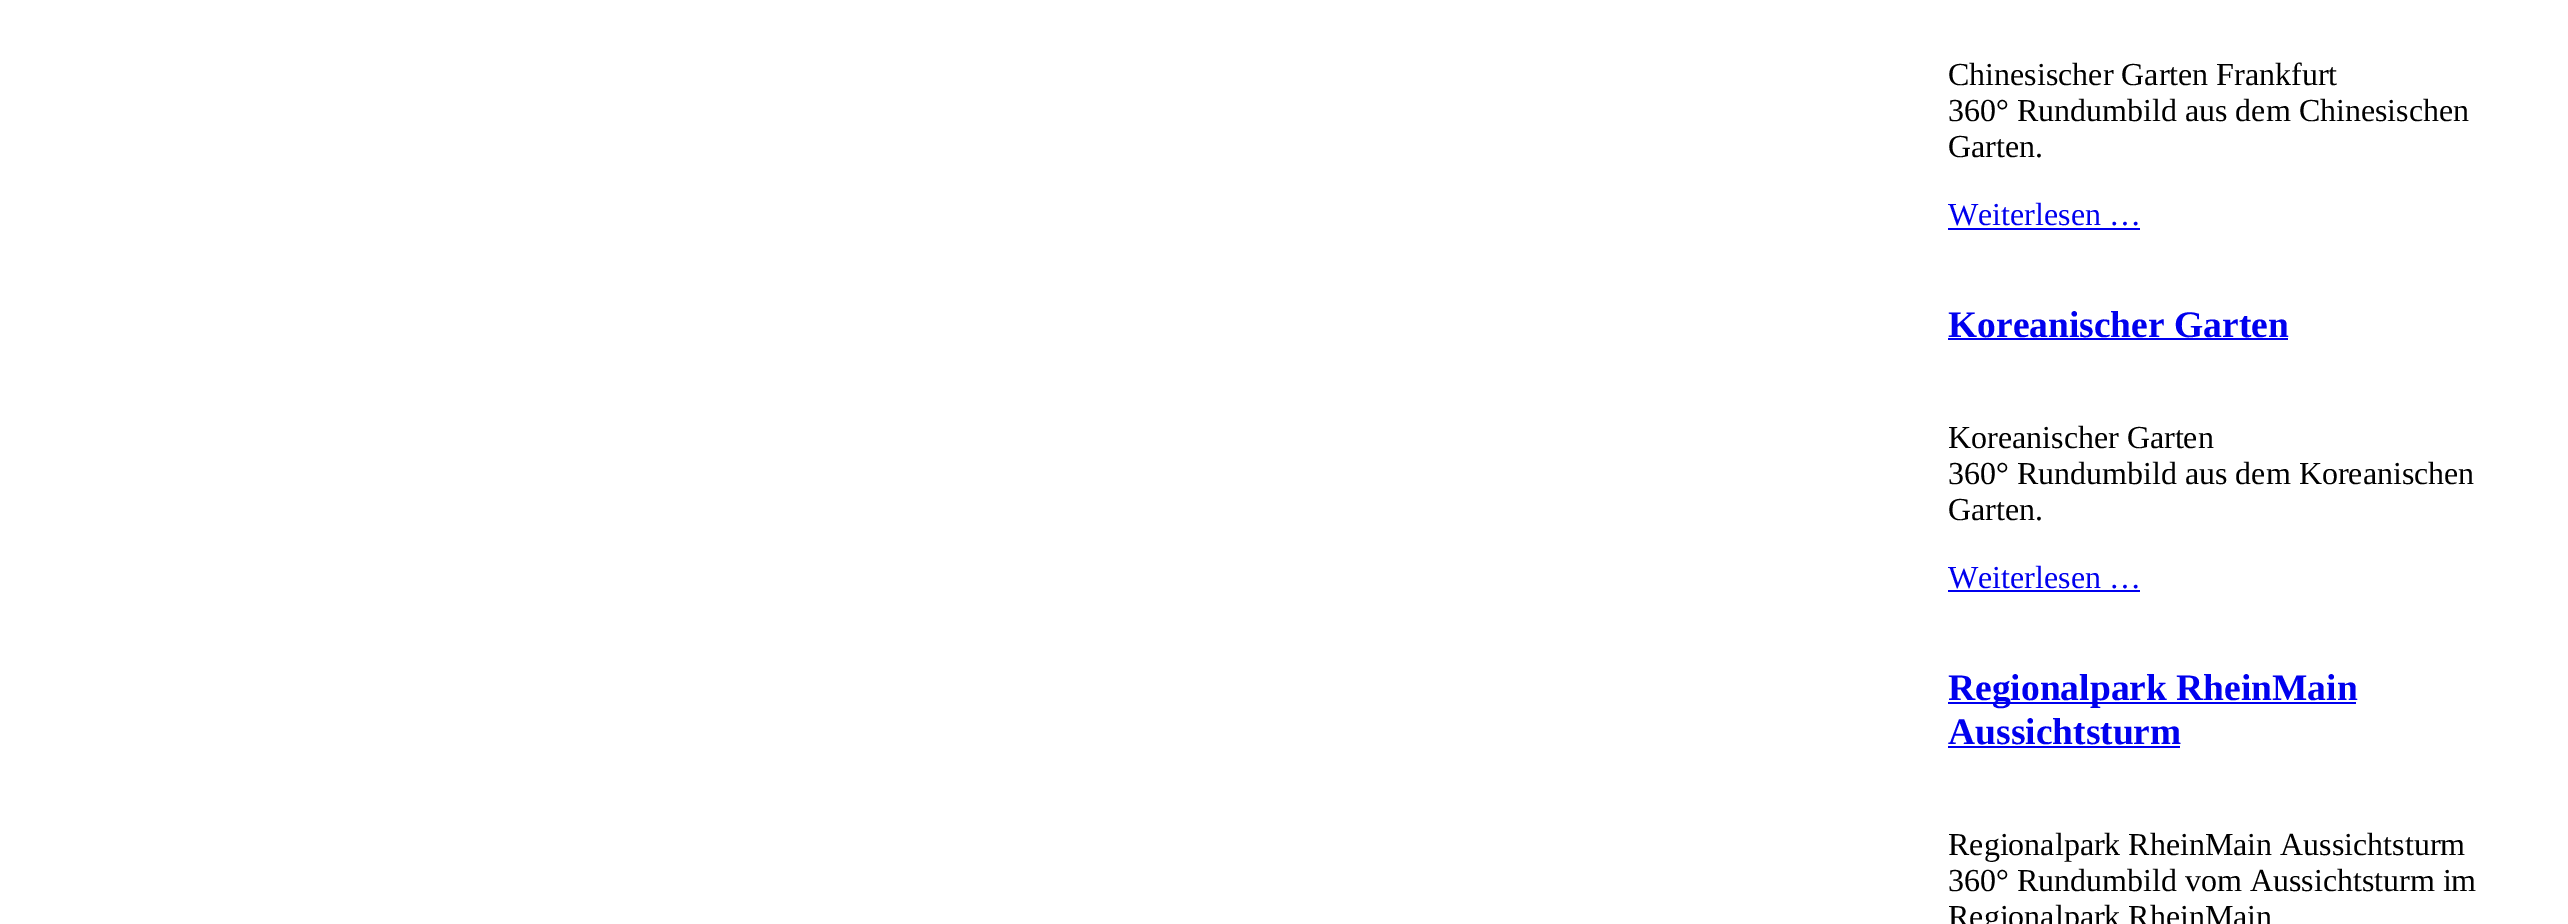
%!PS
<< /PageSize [2568 924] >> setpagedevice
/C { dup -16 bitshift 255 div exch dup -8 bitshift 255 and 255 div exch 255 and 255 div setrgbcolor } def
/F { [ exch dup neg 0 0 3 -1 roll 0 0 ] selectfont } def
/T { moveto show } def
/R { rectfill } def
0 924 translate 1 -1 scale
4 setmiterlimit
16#FFFFFF C
0 0 2568 924 R
/LiberationSerif-Regular 32 F
16#000000 C
(Chinesischer Garten Frankfurt) 1948 85 T
(360° Rundumbild aus dem Chinesischen) 1948 121 T
(Garten.) 1948 157 T
16#0000EE C
(Weiterlesen …) 1948 225 T
1948 228 192 2 R
/LiberationSerif-Bold 37.5 F
(Koreanischer Garten) 1948 337 T
1948 338 340 2 R
/LiberationSerif-Regular 32 F
16#000000 C
(Koreanischer Garten) 1948 448 T
(360° Rundumbild aus dem Koreanischen) 1948 484 T
(Garten.) 1948 520 T
16#0000EE C
(Weiterlesen …) 1948 588 T
1948 590 192 2 R
1948 702 408 2 R
/LiberationSerif-Bold 37.5 F
(Regionalpark RheinMain) 1948 700 T
(Aussichtsturm) 1948 744 T
1948 746 232 2 R
/LiberationSerif-Regular 32 F
16#000000 C
(Regionalpark RheinMain Aussichtsturm) 1948 855 T
(360° Rundumbild vom Aussichtsturm im) 1948 891 T
(Regionalpark RheinMain) 1948 927 T
showpage
